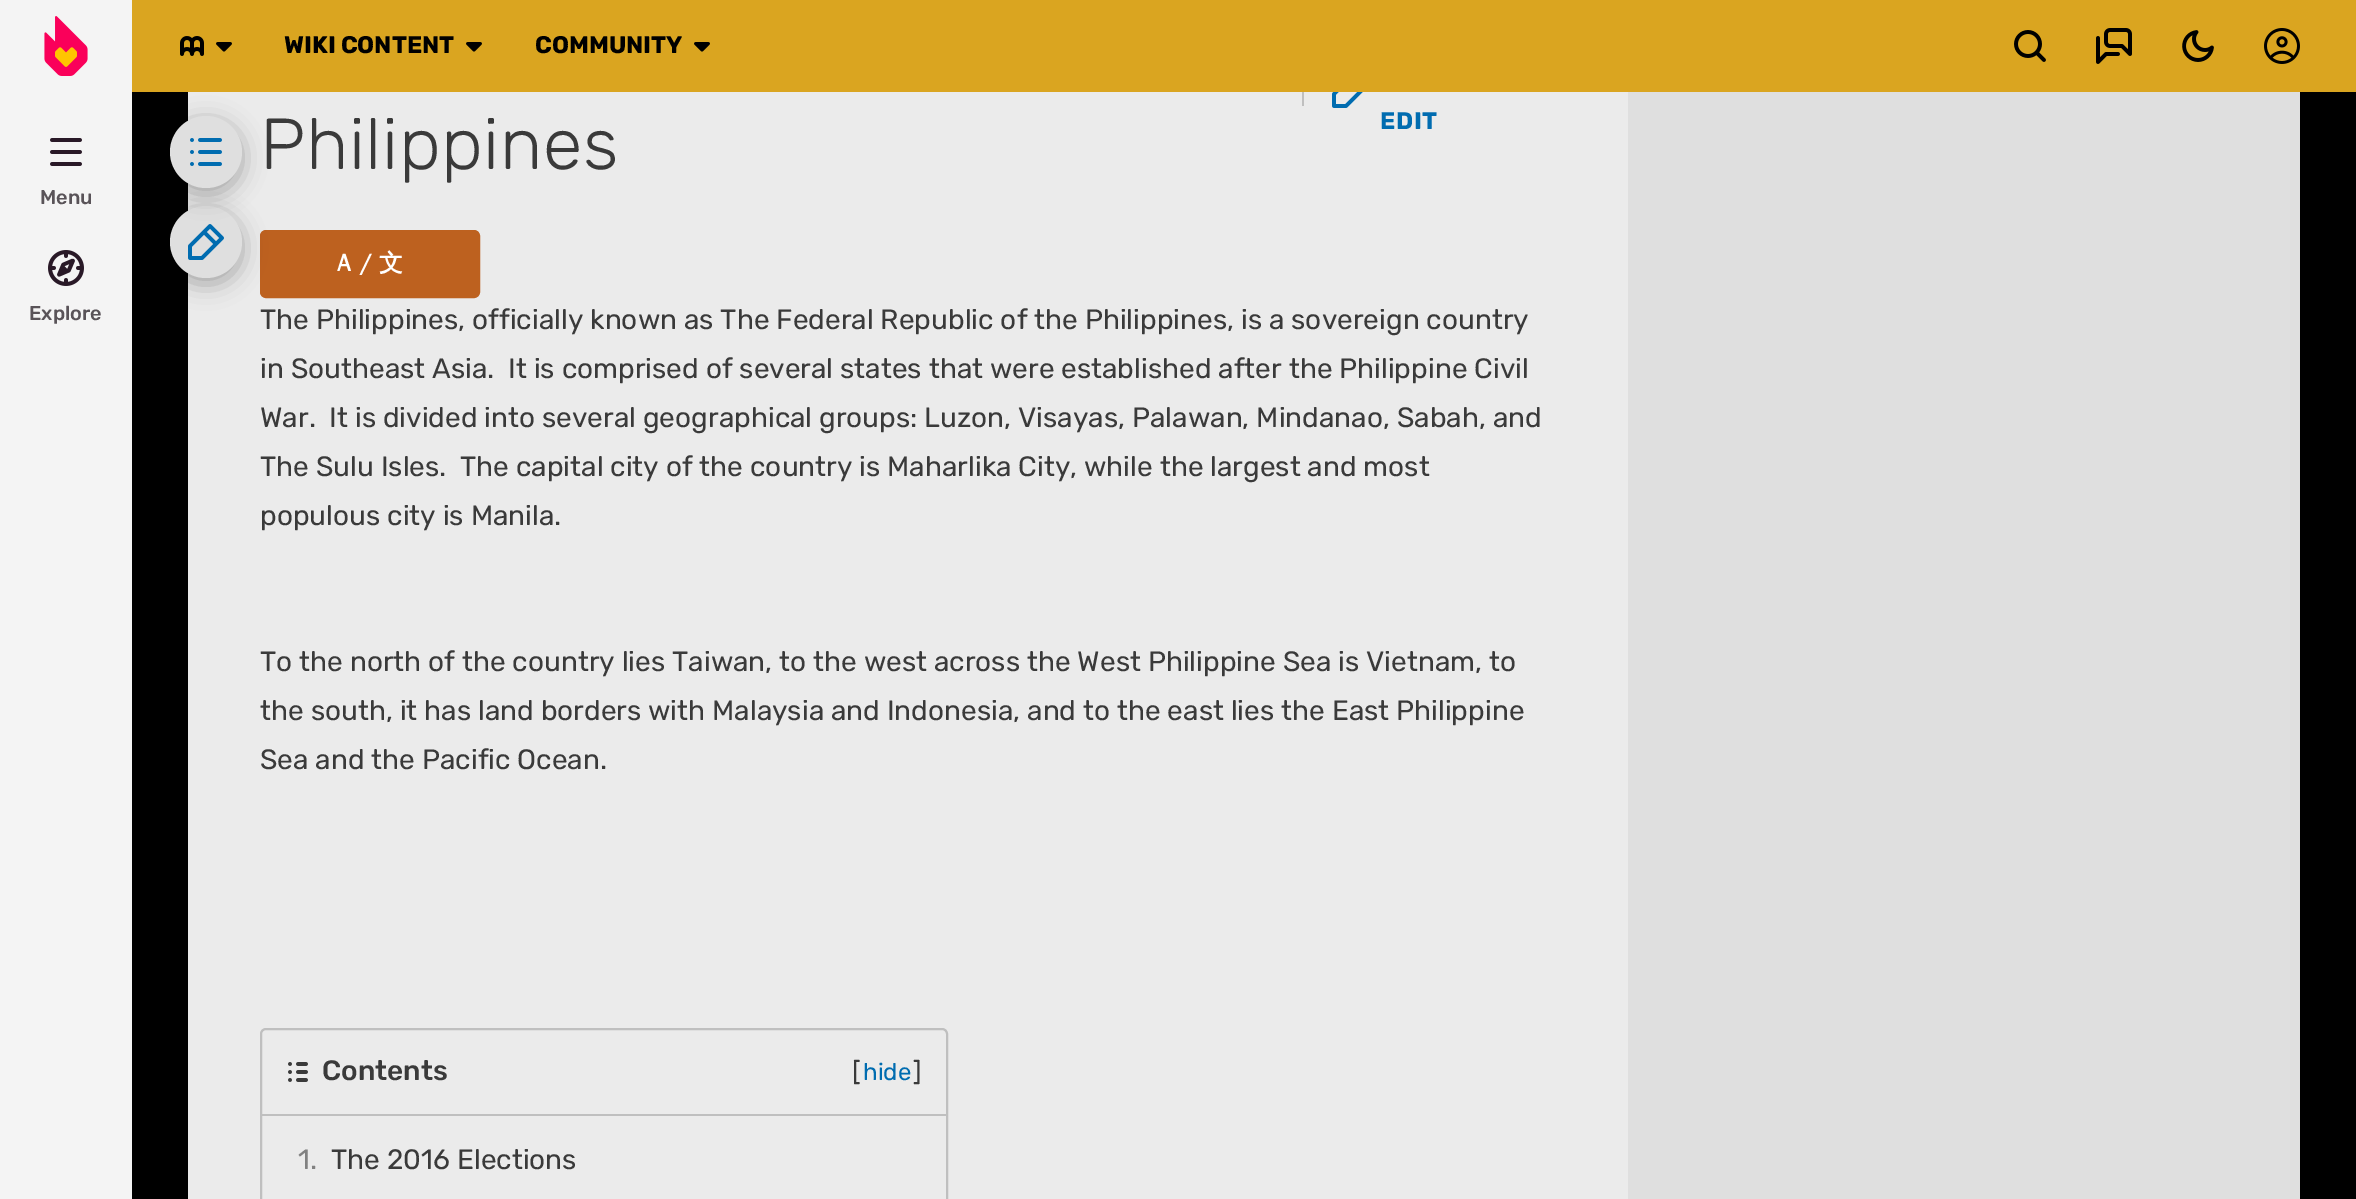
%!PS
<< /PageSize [2356 1199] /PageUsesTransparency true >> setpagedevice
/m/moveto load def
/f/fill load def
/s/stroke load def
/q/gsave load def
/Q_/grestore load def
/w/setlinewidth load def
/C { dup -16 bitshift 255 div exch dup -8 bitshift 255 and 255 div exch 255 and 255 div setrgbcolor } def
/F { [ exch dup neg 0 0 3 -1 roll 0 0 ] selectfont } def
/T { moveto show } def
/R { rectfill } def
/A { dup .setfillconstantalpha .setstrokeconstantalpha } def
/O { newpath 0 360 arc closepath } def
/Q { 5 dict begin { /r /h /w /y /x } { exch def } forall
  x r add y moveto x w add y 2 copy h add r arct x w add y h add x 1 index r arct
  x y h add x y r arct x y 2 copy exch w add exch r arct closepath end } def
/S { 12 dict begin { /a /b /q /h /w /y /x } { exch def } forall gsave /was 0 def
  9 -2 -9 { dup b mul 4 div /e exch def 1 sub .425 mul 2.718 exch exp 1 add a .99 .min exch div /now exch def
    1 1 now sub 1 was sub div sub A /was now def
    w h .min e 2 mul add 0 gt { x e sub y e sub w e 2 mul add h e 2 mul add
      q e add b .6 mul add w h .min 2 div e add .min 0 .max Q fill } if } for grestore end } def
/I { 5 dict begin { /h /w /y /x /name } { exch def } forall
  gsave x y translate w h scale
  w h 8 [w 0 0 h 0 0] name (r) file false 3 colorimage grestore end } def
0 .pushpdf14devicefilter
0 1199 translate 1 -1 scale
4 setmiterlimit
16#000000 C
0 0 2356 1199 R
16#EBEBEB C
188 92 1440 1107 R
16#BD611F C
261 231 218 66 5 Q q f Q_
2 w
s
16#000000 C
170 212 72 72 36 12 .3 S
16#DFDFDF C
206 242 36 O f
(11.rgb) 188 224 36 36 I
16#000000 C
170 122 72 72 36 12 .3 S
16#DAA520 C
132 0 2224 92 R
16#F4F4F4 C
0 0 132 1199 R
(1.rgb) 44 16 44 60 I
(2.rgb) 180 36 24 20 I
(3.rgb) 216 42 16 10 I
/Rubik-Bold 24 F
16#000000 C
(WIKI CONTENT) 284 53 T
(3.rgb) 466 42 16 10 I
(COMMUNITY) 535 53 T
(3.rgb) 694 42 16 10 I
(4.rgb) 2014 30 32 32 I
(5.rgb) 2096 28 36 36 I
(6.rgb) 2182 30 32 32 I
(7.rgb) 2264 28 36 36 I
(8.rgb) 50 138 32 28 I
/Rubik-Medium 20 F
16#595358 C
(Menu) 40 204 T
(9.rgb) 48 250 36 36 I
(Explore) 29 320 T
16#DFDFDF C
206 152 36 O f
(10.rgb) 190 138 32 28 I
/Rubik-Light 72 F
16#3A3A3A C
260 169 m .5 0 (Philippines) ashow
16#BFBFBF C
1302 92 2 14 R
(12.rgb) 1332 92 31 16 I
/Rubik-Bold 24 F
16#006CB0 C
1380 129 m .5 0 (EDIT) ashow
/WenQuanYiZenHei-Bold 24 F
16#FFFFFF C
337 271 m .5 0 (A / 文) ashow
/Rubik-Regular 28 F
16#3A3A3A C
(The Philippines, officially known as The Federal Republic of the Philippines, is a sovereign country) 260 329 T
(in Southeast Asia.  It is comprised of several states that were established after the Philippine Civil) 260 378 T
(War.  It is divided into several geographical groups: Luzon, Visayas, Palawan, Mindanao, Sabah, and) 260 427 T
(The Sulu Isles.  The capital city of the country is Maharlika City, while the largest and most) 260 476 T
(populous city is Manila.) 260 525 T
(To the north of the country lies Taiwan, to the west across the West Philippine Sea is Vietnam, to) 260 671 T
(the south, it has land borders with Malaysia and Indonesia, and to the east lies the East Philippine) 260 720 T
(Sea and the Pacific Ocean.) 260 769 T
16#BFBFBF C
261 1029 686 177 5 Q s
262 1114 684 2 R
(13.rgb) 288 1062 20 20 I
/Rubik-Medium 28 F
16#3A3A3A C
(Contents) 322 1080 T
/Rubik-Regular 26 F
([) 852 1080 T
/Rubik-Regular 24 F
16#006CB0 C
(hide) 863 1080 T
/Rubik-Regular 26 F
16#3A3A3A C
(]) 913 1080 T
/Rubik-Regular 28 F
16#818181 C
(1.) 298 1169 T
16#3A3A3A C
(The 2016 Elections) 331 1169 T
16#DFDFDF C
1628 92 672 1107 R
.poppdf14devicefilter showpage
